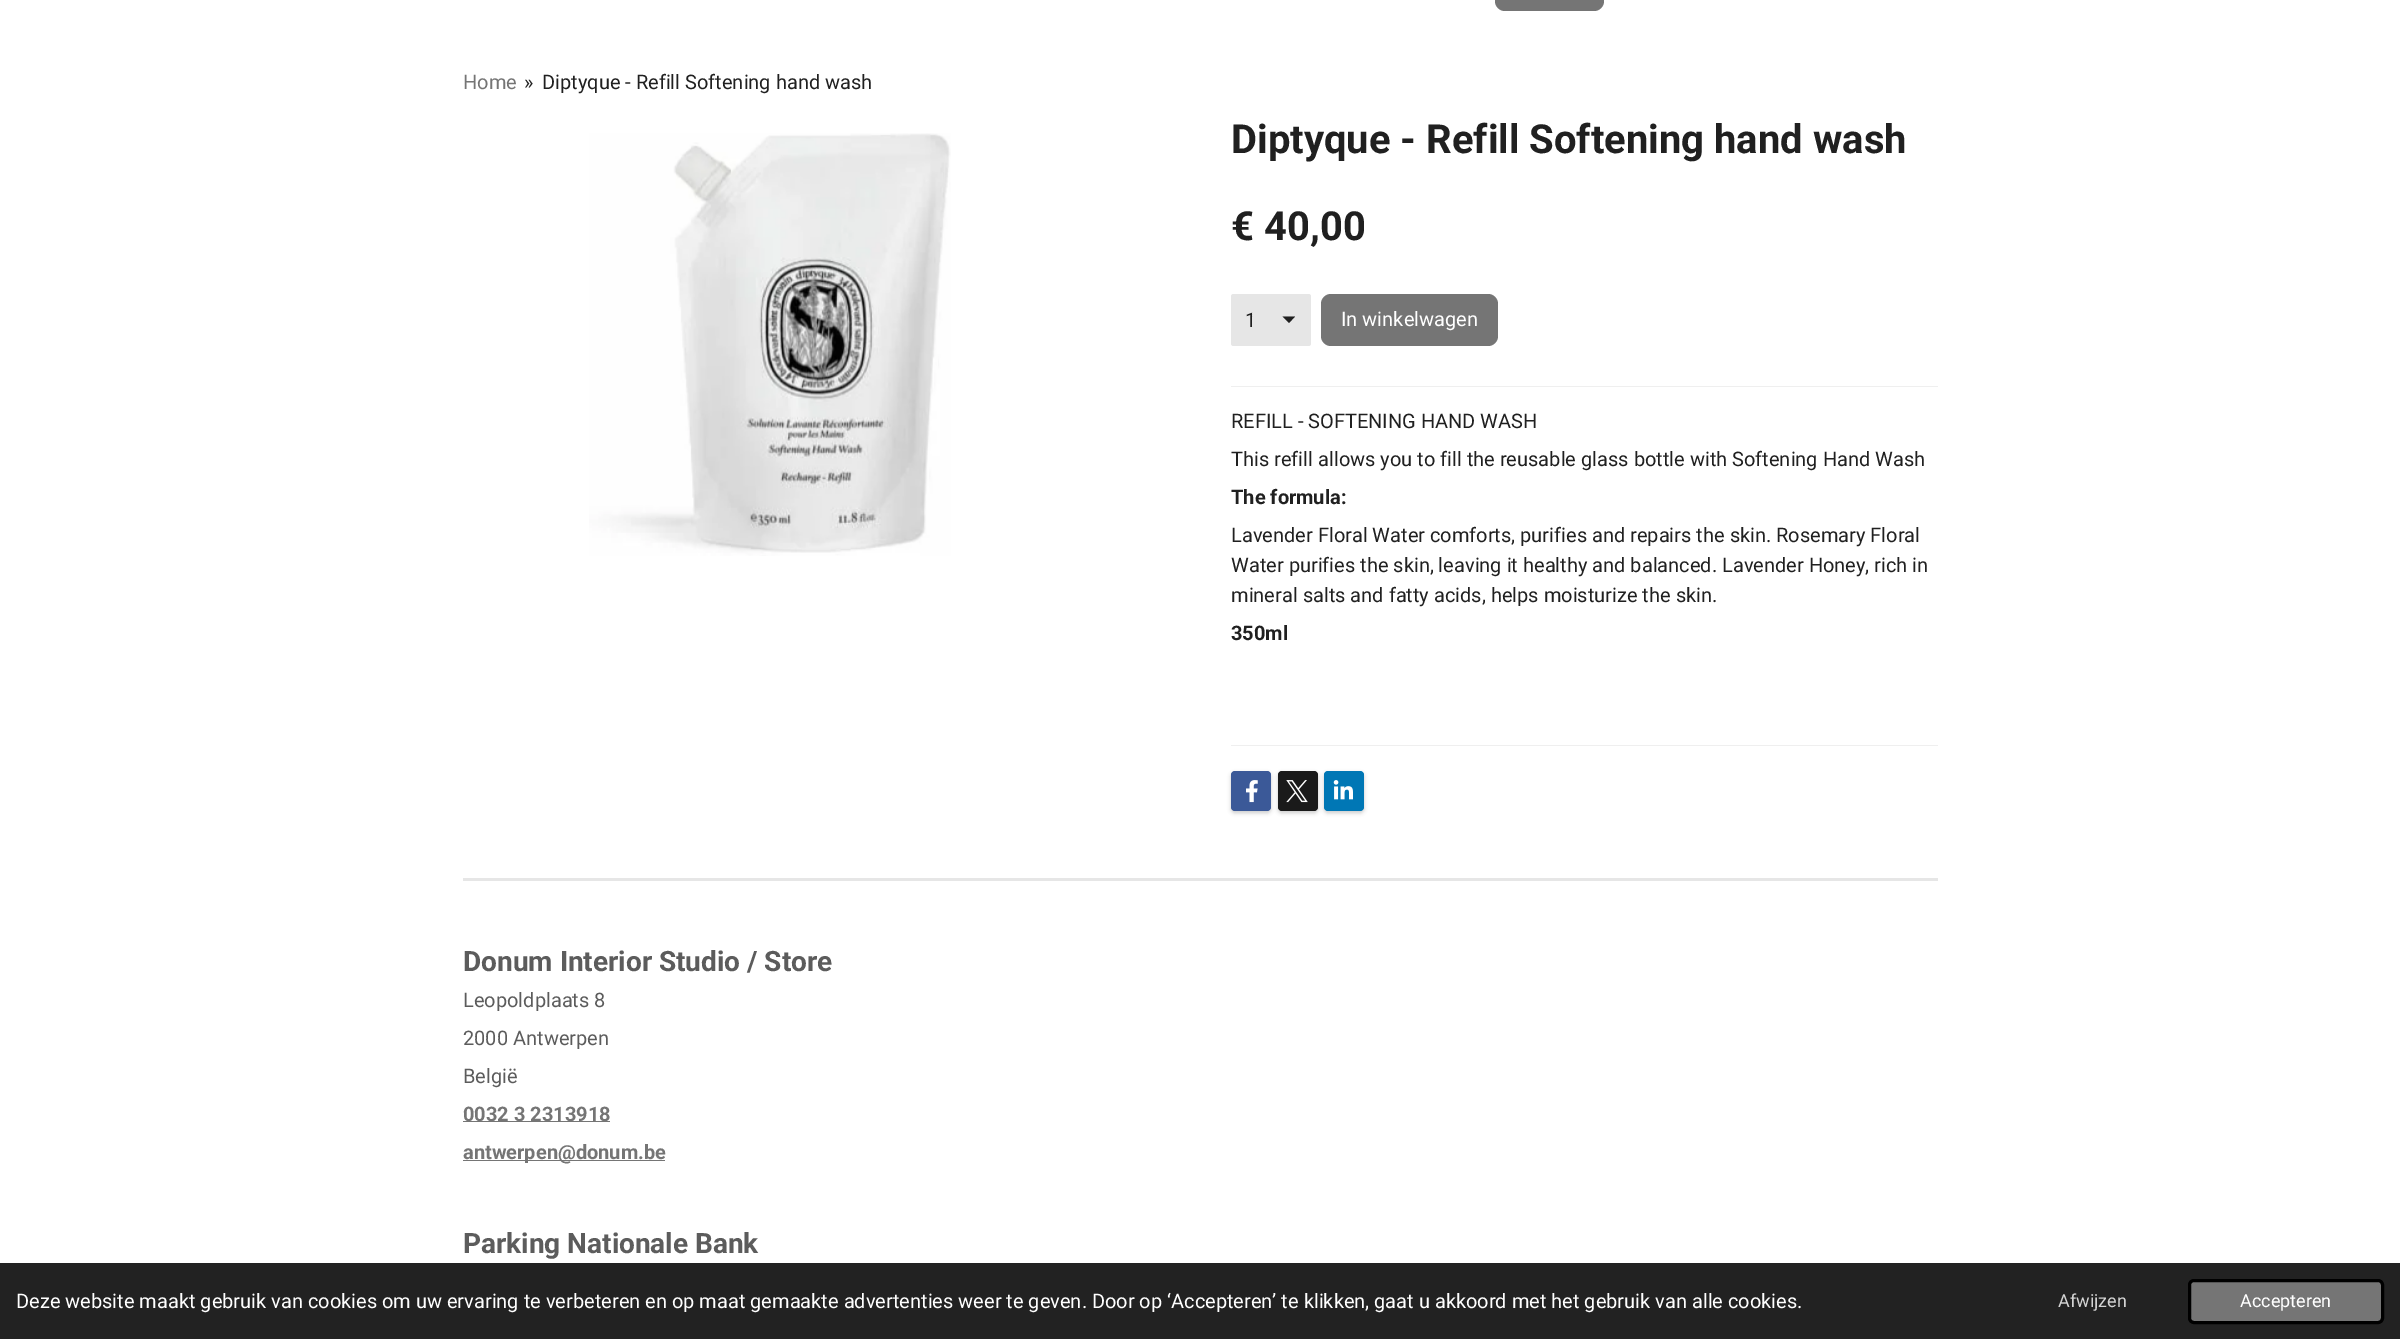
%!PS
<< /PageSize [2400 1339] /PageUsesTransparency true >> setpagedevice
/m/moveto load def
/l/rlineto load def
/z/closepath load def
/f/fill load def
/s/stroke load def
/q/gsave load def
/Q_/grestore load def
/w/setlinewidth load def
/C { dup -16 bitshift 255 div exch dup -8 bitshift 255 and 255 div exch 255 and 255 div setrgbcolor } def
/F { [ exch dup neg 0 0 3 -1 roll 0 0 ] selectfont } def
/T { moveto show } def
/R { rectfill } def
/A { dup .setfillconstantalpha .setstrokeconstantalpha } def
/Q { 5 dict begin { /r /h /w /y /x } { exch def } forall
  x r add y moveto x w add y 2 copy h add r arct x w add y h add x 1 index r arct
  x y h add x y r arct x y 2 copy exch w add exch r arct closepath end } def
/S { 12 dict begin { /a /b /q /h /w /y /x } { exch def } forall gsave /was 0 def
  9 -2 -9 { dup b mul 4 div /e exch def 1 sub .425 mul 2.718 exch exp 1 add a .99 .min exch div /now exch def
    1 1 now sub 1 was sub div sub A /was now def
    w h .min e 2 mul add 0 gt { x e sub y e sub w e 2 mul add h e 2 mul add
      q e add b .6 mul add w h .min 2 div e add .min 0 .max Q fill } if } for grestore end } def
/I { 5 dict begin { /h /w /y /x /name } { exch def } forall
  gsave x y translate w h scale
  w h 8 [w 0 0 h 0 0] name (r) file false 3 colorimage grestore end } def
0 .pushpdf14devicefilter
0 1339 translate 1 -1 scale
4 setmiterlimit
16#FFFFFF C
0 0 2400 1339 R
16#757575 C
1495 -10 109 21 10 Q f
/Roboto-Regular 20 F
(Home) 463 89 T
16#202020 C
(») 524 89 T
(Diptyque - Refill Softening hand wash) 542 89 T
(1.rgb) 589 133 362 423 I
/Roboto-Bold 40 F
(Diptyque - Refill Softening hand wash) 1231 153 T
(€ 40,00) 1231 240 T
16#E6E6E6 C
1231 294 80 52 2.5 Q f
16#202020 C
1289 323 m -6.5 -6.5 l 12.5 0 l z f
/Roboto-Regular 20 F
(1) 1245 327 T
16#757575 C
1321 294 177 52 10 Q f
16#FFFFFF C
(In winkelwagen) 1341 326 T
16#EFEFEF C
1231 386 707 1 R
16#202020 C
(REFILL - SOFTENING HAND WASH) 1231 428 T
(This refill allows you to fill the reusable glass bottle with Softening Hand Wash) 1231 466 T
/Roboto-Bold 20 F
(The formula:) 1231 504 T
/Roboto-Regular 20 F
(Lavender Floral Water comforts, purifies and repairs the skin. Rosemary Floral) 1231 542 T
(Water purifies the skin, leaving it healthy and balanced. Lavender Honey, rich in) 1231 572 T
(mineral salts and fatty acids, helps moisturize the skin.) 1231 602 T
/Roboto-Bold 20 F
(350ml) 1231 640 T
16#EFEFEF C
1231 745 707 1 R
16#000000 C
1231 773 40 40 4 2 .2 S
16#3B5998 C
1231 771 40 40 4 Q f
(2.rgb) 1246 780 12 23 I
16#000000 C
1278 773 40 40 4 2 .2 S
16#1A1A1A C
1278 771 40 40 4 Q f
(3.rgb) 1286 780 22 23 I
16#000000 C
1324 773 40 40 4 2 .2 S
16#0077B5 C
1324 771 40 40 4 Q f
(4.rgb) 1333 780 20 20 I
16#E6E6E6 C
463 878 1475 3 R
/Roboto-Bold 28 F
16#5C5C5C C
(Donum Interior Studio / Store) 463 971 T
/Roboto-Regular 20 F
(Leopoldplaats 8) 463 1007 T
(2000 Antwerpen) 463 1045 T
(België) 463 1083 T
16#757575 C
463 1121 147 1 R
/Roboto-Bold 20 F
(0032 3 2313918) 463 1121 T
463 1160 202 1 R
(antwerpen@donum.be) 463 1159 T
/Roboto-Bold 28 F
16#5C5C5C C
(Parking Nationale Bank) 463 1253 T
16#222222 C
0 1263 2400 76 R
/Roboto-Regular 20 F
16#FFFFFF C
(Deze website maakt gebruik van cookies om uw ervaring te verbeteren en op maat gemaakte advertenties weer te geven. Door op ‘Accepteren’ te klikken, gaat u akkoord met het gebruik van alle cookies.) 16 1308 T
/Roboto-Regular 18 F
16#D3D3D3 C
(Afwijzen) 2058 1307 T
16#757575 C
2189.5 1280.5 193 42 4.5 Q q f Q_
16#000000 C
3 w
s
16#FFFFFF C
(Accepteren) 2240 1307 T
.poppdf14devicefilter showpage
